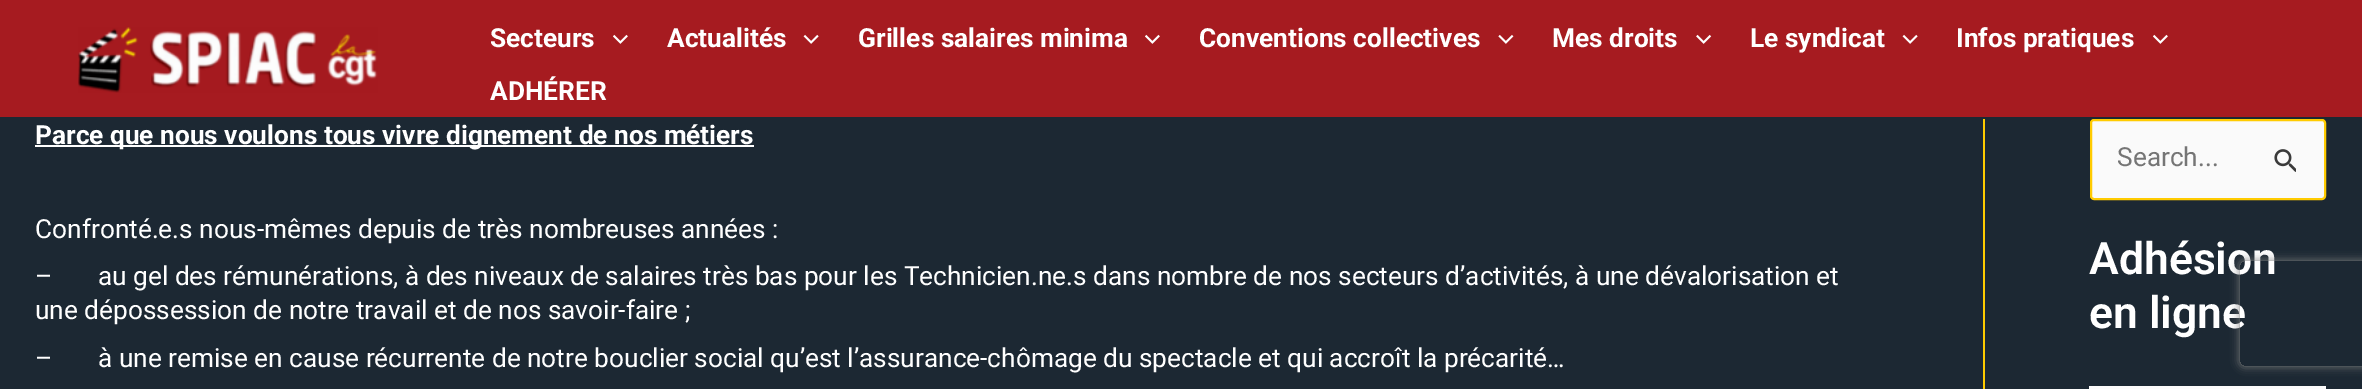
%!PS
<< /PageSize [2362 389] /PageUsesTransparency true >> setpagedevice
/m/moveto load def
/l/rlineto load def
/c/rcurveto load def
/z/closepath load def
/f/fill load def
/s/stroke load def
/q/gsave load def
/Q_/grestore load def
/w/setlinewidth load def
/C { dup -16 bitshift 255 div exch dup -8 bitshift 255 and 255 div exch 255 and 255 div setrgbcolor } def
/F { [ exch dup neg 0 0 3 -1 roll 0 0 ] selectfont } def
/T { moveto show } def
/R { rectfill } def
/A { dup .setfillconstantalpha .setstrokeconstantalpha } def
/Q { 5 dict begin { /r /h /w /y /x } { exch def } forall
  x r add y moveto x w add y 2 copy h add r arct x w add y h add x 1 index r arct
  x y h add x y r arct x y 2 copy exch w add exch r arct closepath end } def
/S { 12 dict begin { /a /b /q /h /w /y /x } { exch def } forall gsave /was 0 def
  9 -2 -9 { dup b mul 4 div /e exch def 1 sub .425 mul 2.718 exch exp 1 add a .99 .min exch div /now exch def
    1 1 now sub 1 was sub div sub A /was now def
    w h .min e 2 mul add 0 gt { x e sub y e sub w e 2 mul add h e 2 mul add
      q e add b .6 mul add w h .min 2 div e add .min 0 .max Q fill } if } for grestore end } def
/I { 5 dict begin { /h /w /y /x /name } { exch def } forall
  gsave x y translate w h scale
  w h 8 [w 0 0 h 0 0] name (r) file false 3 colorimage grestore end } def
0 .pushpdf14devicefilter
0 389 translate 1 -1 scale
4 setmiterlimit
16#1C2833 C
0 0 2362 389 R
16#A61B20 C
0 0 2362 117 R
(1.rgb) 78 27 300 66 I
/Roboto-Bold 26.25 F
16#FFFFFF C
(Secteurs) 490 47 T
(2.rgb) 613 34 15 10 I
(Actualités) 667 47 T
(3.rgb) 803 34 16 10 I
(Grilles salaires minima) 858 47 T
(2.rgb) 1145 34 15 10 I
(Conventions collectives) 1199 47 T
(4.rgb) 1498 34 16 10 I
(Mes droits) 1552 47 T
(5.rgb) 1696 34 16 10 I
(Le syndicat) 1750 47 T
(3.rgb) 1902 34 16 10 I
(Infos pratiques) 1956 47 T
(2.rgb) 2153 34 15 10 I
(ADHÉRER) 490 100 T
16#FFCB00 C
1983 119 2 270 R
16#FFFFFF C
35 145 719 2 R
(Parce que nous voulons tous vivre dignement de nos métiers) 35 144 T
/Roboto-Regular 26.25 F
(Confronté.e.s nous-mêmes depuis de très nombreuses années :) 35 238 T
(–       au gel des rémunérations, à des niveaux de salaires très bas pour les Technicien.ne.s dans nombre de nos secteurs d’activités, à une dévalorisation et) 35 285 T
(une dépossession de notre travail et de nos savoir-faire ;) 35 319 T
(–       à une remise en cause récurrente de notre bouclier social qu’est l’assurance-chômage du spectacle et qui accroît la précarité…) 35 367 T
16#FAFAFA C
2091 120 234 79 3 Q q f Q_
16#FFCB00 C
2 w
s
16#757575 C
(Search...) 2117 166 T
(6.rgb) 2274 149 22 23 I
/Roboto-SemiBold 44.5 F
16#FFFFFF C
(Adhésion) 2089 274 T
(en ligne) 2089 328 T
16#FCFCFC C
2089 386 237 3 R
q
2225 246 m 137 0 l 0 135 l -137 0 l z 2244 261 m 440 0 l 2 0 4 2 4 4 c 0 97 l 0 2 -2 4 -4 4 c -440 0 l -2 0 -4 -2 -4 -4 c 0 -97 l 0 -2 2 -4 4 -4 c z eoclip newpath
16#808080 C
2240 261 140 105 4 4.5 1 S
Q_
.poppdf14devicefilter showpage
